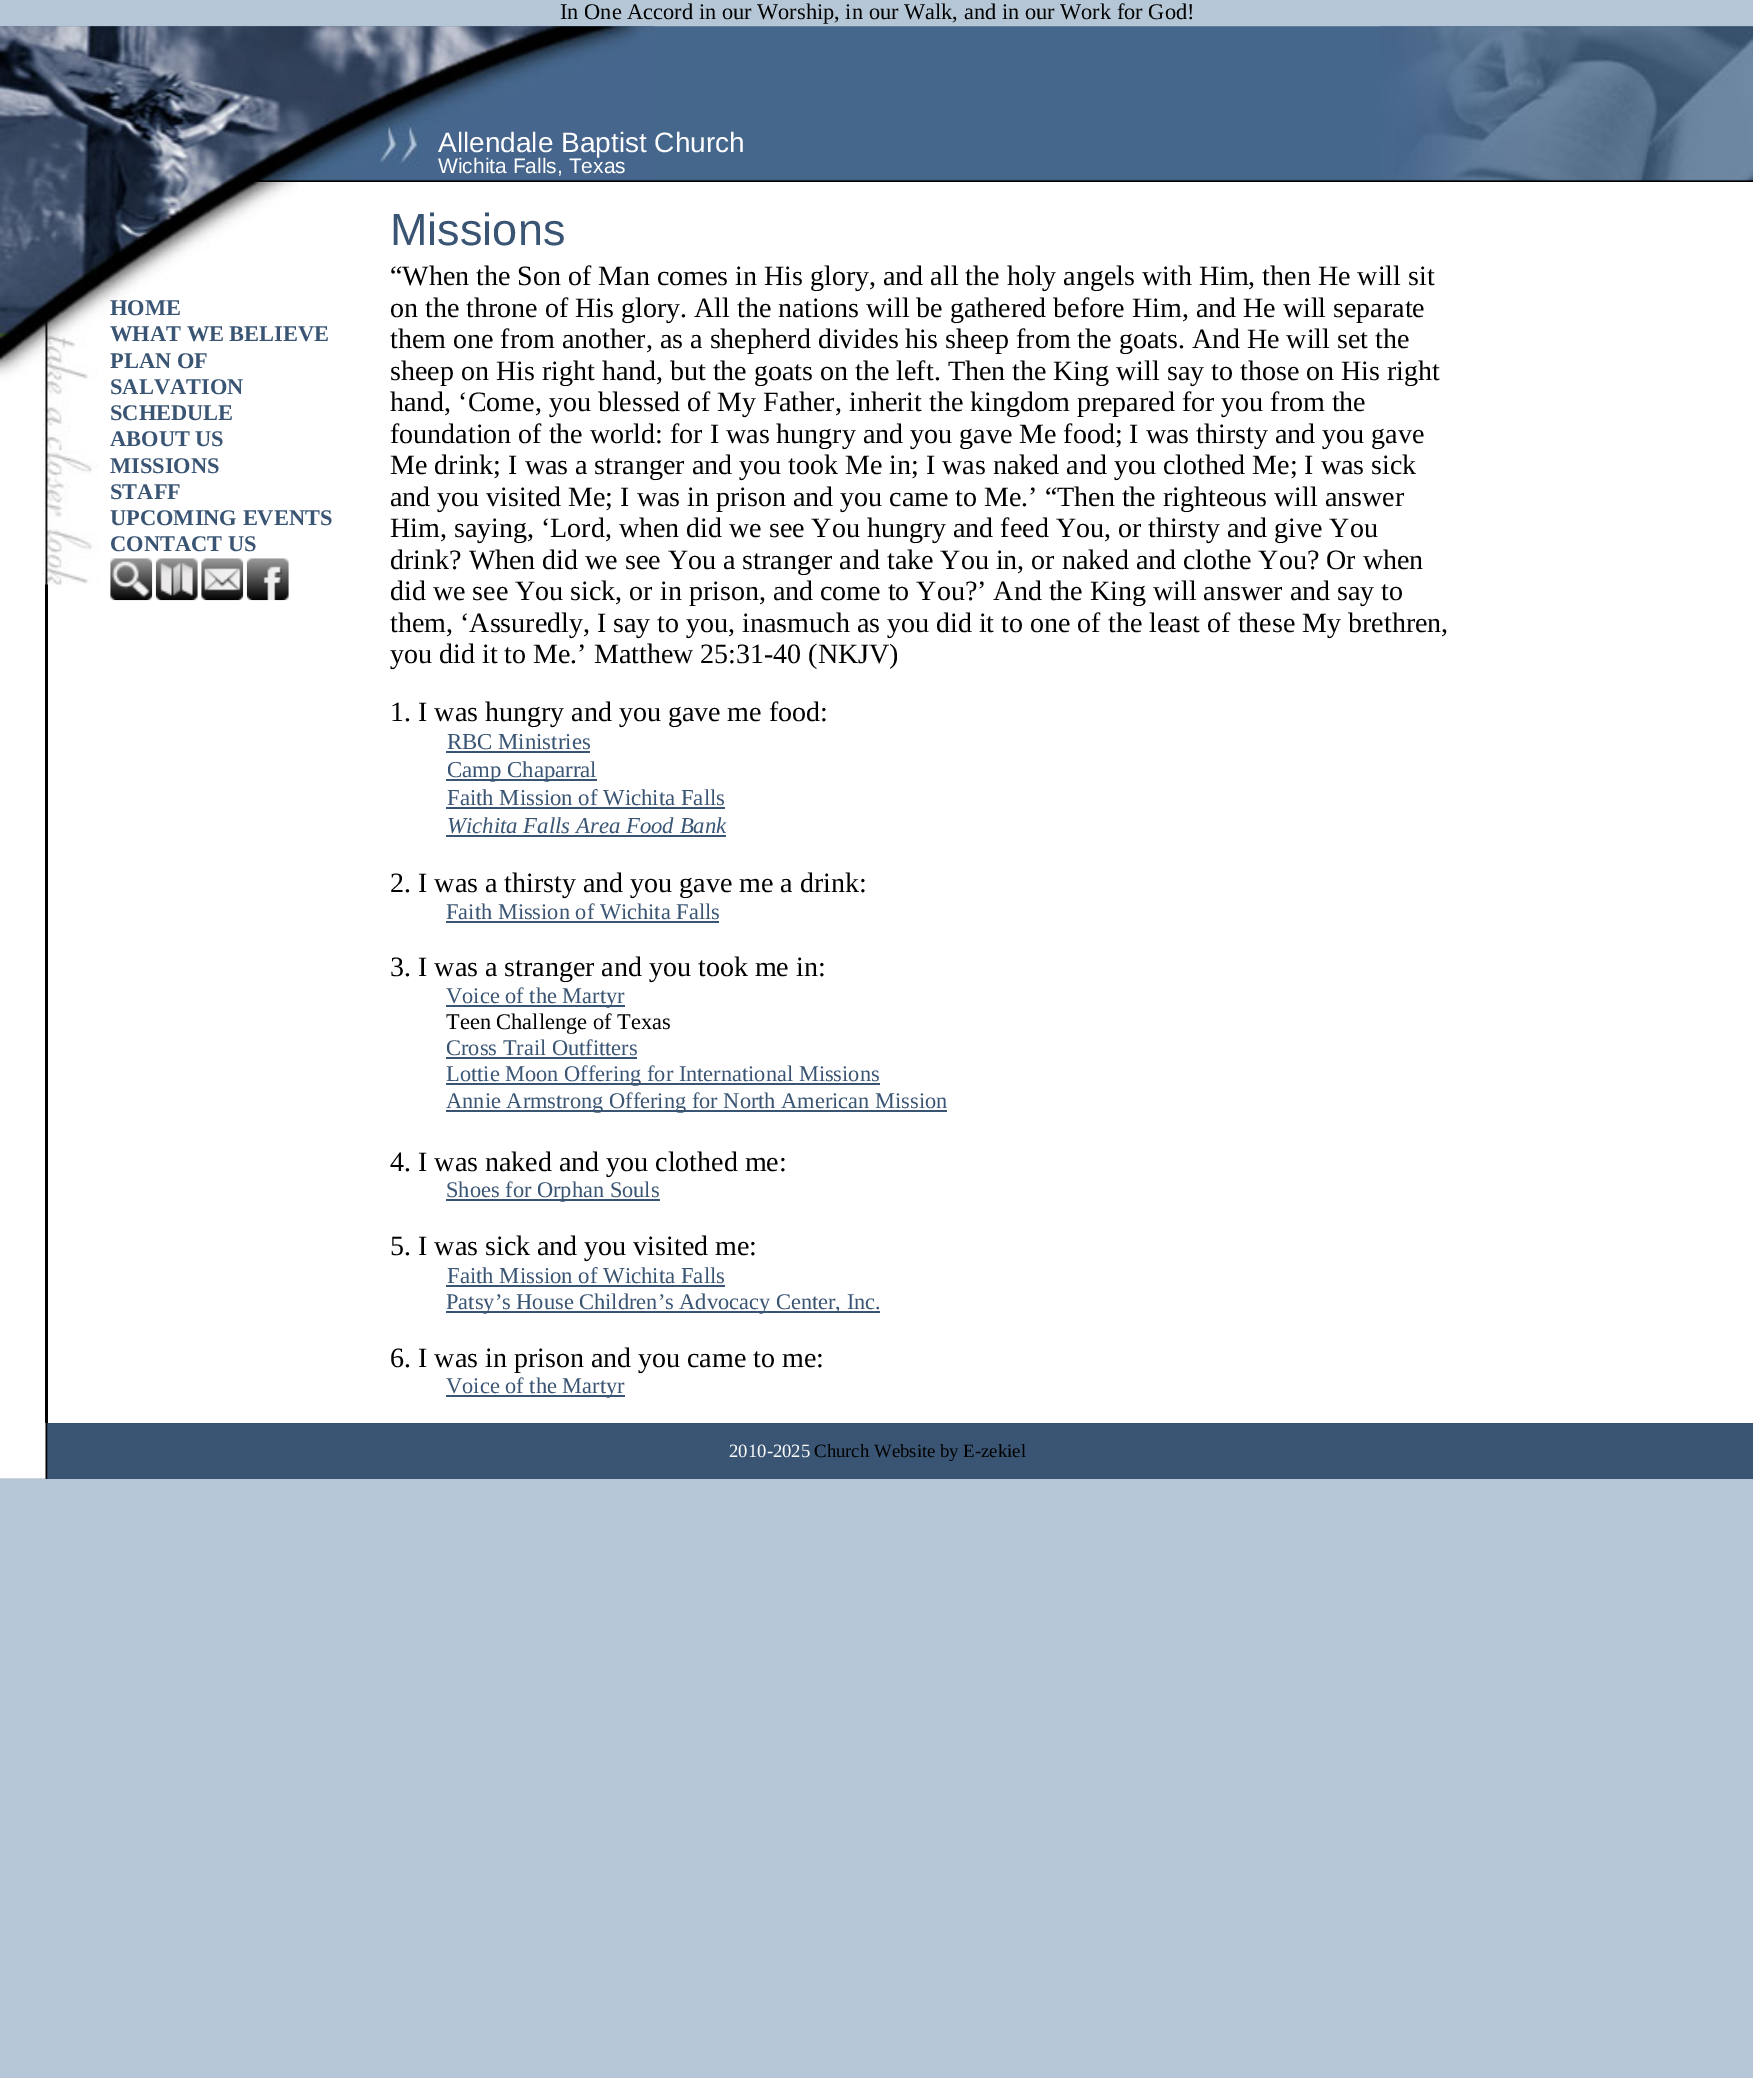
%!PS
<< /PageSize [1753 2078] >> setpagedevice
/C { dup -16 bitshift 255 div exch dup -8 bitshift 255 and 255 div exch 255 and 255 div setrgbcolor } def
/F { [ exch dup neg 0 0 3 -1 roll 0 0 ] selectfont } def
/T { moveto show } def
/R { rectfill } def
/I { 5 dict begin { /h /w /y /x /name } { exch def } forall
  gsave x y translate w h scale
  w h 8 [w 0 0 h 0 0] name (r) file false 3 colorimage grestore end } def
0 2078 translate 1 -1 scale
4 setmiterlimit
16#B5C7D6 C
0 0 1753 2078 R
/LiberationSerif-Regular 22.4 F
16#000000 C
(In One Accord in our Worship, in our Walk, and in our Work for God!) 560 19 T
(1.rgb) 0 26 1753 156 I
(2.rgb) 0 26 655 156 I
/LiberationSans-Regular 28 F
16#FFFFFF C
(Allendale Baptist Church) 438 152 T
(3.rgb) 1380 26 373 155 I
/LiberationSans-Regular 21 F
(Wichita Falls, Texas) 438 173 T
0 182 1753 1241 R
16#000000 C
45 584 3 839 R
(4.rgb) 0 182 298 403 I
/LiberationSerif-Bold 22.4 F
16#395573 C
(HOME) 110 315 T
(WHAT WE BELIEVE) 110 341 T
(PLAN OF) 110 368 T
(SALVATION) 110 394 T
(SCHEDULE) 110 420 T
(ABOUT US) 110 446 T
(MISSIONS) 110 473 T
(STAFF) 110 499 T
(UPCOMING EVENTS) 110 525 T
(CONTACT US) 110 551 T
(5.rgb) 110 558 43 43 I
(6.rgb) 155 558 43 43 I
(7.rgb) 201 558 43 43 I
(8.rgb) 246 558 43 43 I
/LiberationSans-Regular 45 F
(Missions) 390 245 T
/LiberationSerif-Regular 28 F
16#000000 C
(“When the Son of Man comes in His glory, and all the holy angels with Him, then He will sit) 390 285 T
(on the throne of His glory. All the nations will be gathered before Him, and He will separate) 390 317 T
(them one from another, as a shepherd divides his sheep from the goats. And He will set the) 390 348 T
(sheep on His right hand, but the goats on the left. Then the King will say to those on His right) 390 380 T
(hand, ‘Come, you blessed of My Father, inherit the kingdom prepared for you from the) 390 411 T
(foundation of the world: for I was hungry and you gave Me food; I was thirsty and you gave) 390 443 T
(Me drink; I was a stranger and you took Me in; I was naked and you clothed Me; I was sick) 390 474 T
(and you visited Me; I was in prison and you came to Me.’ “Then the righteous will answer) 390 506 T
(Him, saying, ‘Lord, when did we see You hungry and feed You, or thirsty and give You) 390 537 T
(drink? When did we see You a stranger and take You in, or naked and clothe You? Or when) 390 569 T
(did we see You sick, or in prison, and come to You?’ And the King will answer and say to) 390 600 T
(them, ‘Assuredly, I say to you, inasmuch as you did it to one of the least of these My brethren,) 390 632 T
(you did it to Me.’ Matthew 25:31-40 \(NKJV\)) 390 663 T
(1. I was hungry and you gave me food:) 390 721 T
/LiberationSerif-Regular 22.75 F
16#395573 C
(RBC Ministries) 447 749 T
446 751 144 2 R
446 779 151 2 R
(Camp Chaparral) 447 777 T
(Faith Mission of Wichita Falls) 447 805 T
446 807 279 2 R
/LiberationSerif-Italic 22.75 F
(Wichita Falls Area Food Bank) 447 833 T
446 835 280 2 R
/LiberationSerif-Regular 28 F
16#000000 C
(2. I was a thirsty and you gave me a drink:) 390 892 T
/LiberationSerif-Regular 22.4 F
16#395573 C
(Faith Mission of Wichita Falls) 446 919 T
446 921 273 2 R
/LiberationSerif-Regular 28 F
16#000000 C
(3. I was a stranger and you took me in:) 390 976 T
16#395573 C
446 1005 179 2 R
/LiberationSerif-Regular 22.4 F
(Voice of the Martyr) 446 1003 T
16#000000 C
(Teen Challenge of Texas) 446 1029 T
16#395573 C
(Cross Trail Outfitters) 446 1055 T
446 1057 191 2 R
446 1083 434 2 R
(Lottie Moon Offering for International Missions) 446 1081 T
446 1110 501 2 R
(Annie Armstrong Offering for North American Mission) 446 1108 T
/LiberationSerif-Regular 28 F
16#000000 C
(4. I was naked and you clothed me:) 390 1171 T
16#395573 C
446 1199 214 2 R
/LiberationSerif-Regular 22.4 F
(Shoes for Orphan Souls) 446 1197 T
/LiberationSerif-Regular 28 F
16#000000 C
(5. I was sick and you visited me:) 390 1255 T
/LiberationSerif-Regular 22.75 F
16#395573 C
(Faith Mission of Wichita Falls) 447 1283 T
446 1285 279 2 R
446 1311 434 2 R
/LiberationSerif-Regular 22.4 F
(Patsy’s House Children’s Advocacy Center, Inc.) 446 1309 T
/LiberationSerif-Regular 28 F
16#000000 C
(6. I was in prison and you came to me:) 390 1367 T
16#395573 C
446 1395 179 2 R
/LiberationSerif-Regular 22.4 F
(Voice of the Martyr) 446 1393 T
0 1423 1753 56 R
(9.rgb) 0 1422 48 57 I
/LiberationSerif-Regular 18.75 F
16#FFFFFF C
(2010-2025) 729 1457 T
16#000000 C
(Church Website by E-zekiel) 814 1457 T
showpage
